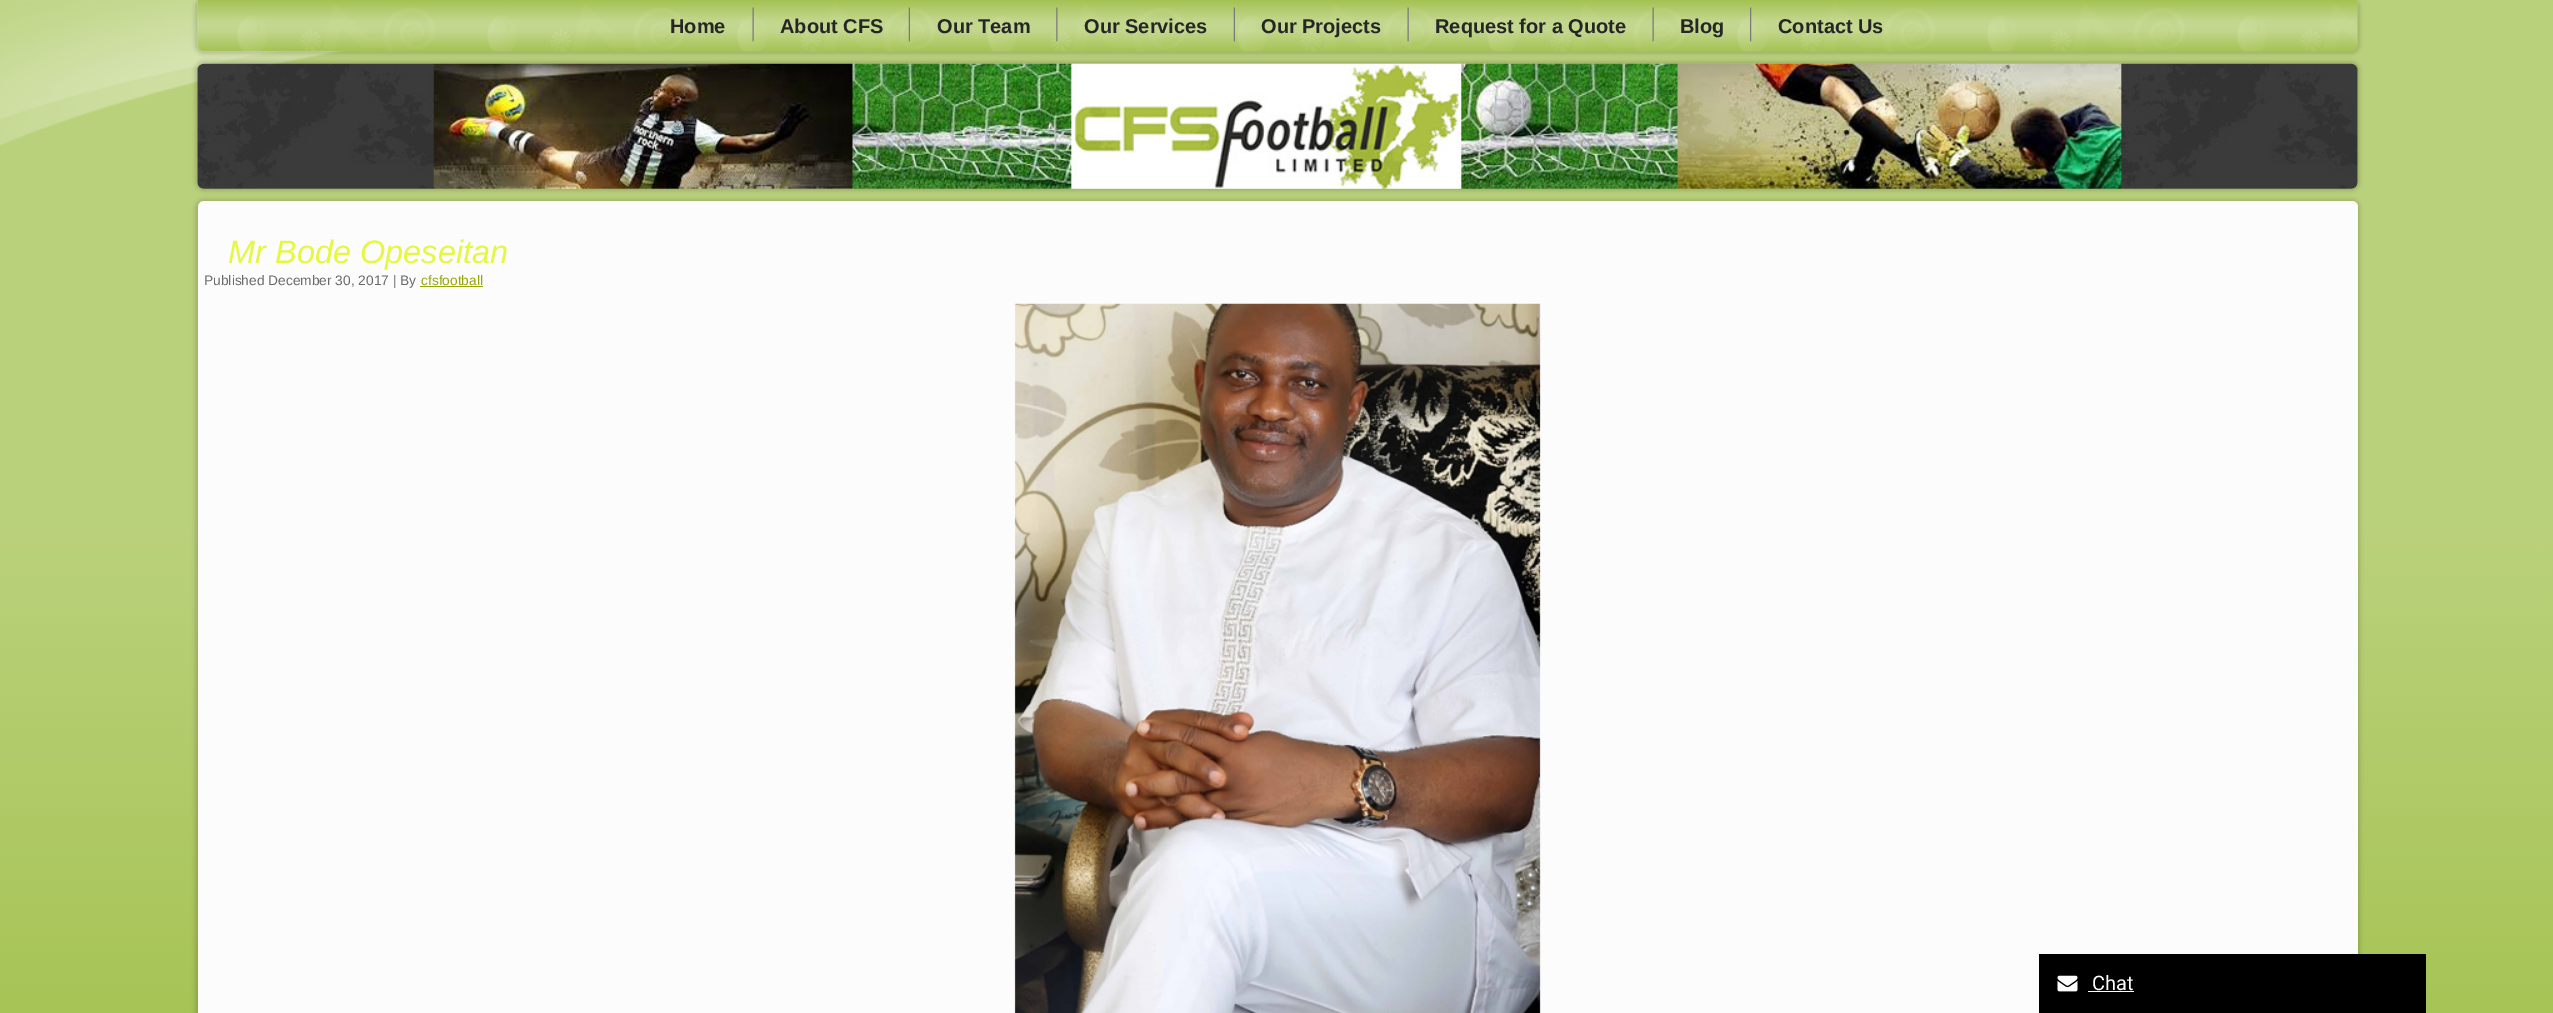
%!PS
<< /PageSize [2553 1013] /PageUsesTransparency true >> setpagedevice
/f/fill load def
/C { dup -16 bitshift 255 div exch dup -8 bitshift 255 and 255 div exch 255 and 255 div setrgbcolor } def
/F { [ exch dup neg 0 0 3 -1 roll 0 0 ] selectfont } def
/T { moveto show } def
/R { rectfill } def
/A { dup .setfillconstantalpha .setstrokeconstantalpha } def
/Q { 5 dict begin { /r /h /w /y /x } { exch def } forall
  x r add y moveto x w add y 2 copy h add r arct x w add y h add x 1 index r arct
  x y h add x y r arct x y 2 copy exch w add exch r arct closepath end } def
/S { 12 dict begin { /a /b /q /h /w /y /x } { exch def } forall gsave /was 0 def
  9 -2 -9 { dup b mul 4 div /e exch def 1 sub .425 mul 2.718 exch exp 1 add a .99 .min exch div /now exch def
    1 1 now sub 1 was sub div sub A /was now def
    w h .min e 2 mul add 0 gt { x e sub y e sub w e 2 mul add h e 2 mul add
      q e add b .6 mul add w h .min 2 div e add .min 0 .max Q fill } if } for grestore end } def
/I { 5 dict begin { /h /w /y /x /name } { exch def } forall
  gsave x y translate w h scale
  w h 8 [w 0 0 h 0 0] name (r) file false 3 colorimage grestore end } def
0 .pushpdf14devicefilter
0 1013 translate 1 -1 scale
4 setmiterlimit
16#FFFFFF C
0 0 2553 1013 R
(1.rgb) 0 0 2553 1013 I
16#000000 C
195 -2 2165 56 9 2 .15 S
(2.rgb) 197 0 2161 52 I
/LiberationSans-Bold 20 F
16#262626 C
(Home) 670 33 T
(3.rgb) 752 7 2 35 I
(About CFS) 780 33 T
(4.rgb) 908 7 2 35 I
(Our Team) 937 33 T
(5.rgb) 1056 7 2 35 I
(Our Services) 1084 33 T
(6.rgb) 1233 7 2 35 I
(Our Projects) 1261 33 T
(7.rgb) 1407 7 2 35 I
(Request for a Quote) 1435 33 T
(8.rgb) 1652 7 2 35 I
(Blog) 1680 33 T
(9.rgb) 1750 7 2 35 I
(Contact Us) 1778 33 T
16#000000 C
195 61 2165 130 9 2 .15 S
(10.rgb) 197 63 2161 126 I
195 199 2165 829 9 2 .15 S
16#FCFCFC C
198 201 2160 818 6 Q f
/LiberationSans-Italic 32.5 F
16#E5F740 C
(Mr Bode Opeseitan) 228 263 T
/LiberationSans-Regular 13.75 F
16#696969 C
(Published December 30, 2017 | By) 204 285 T
16#97A607 C
(cfsfootball) 421 285 T
420 286 63 1 R
(11.rgb) 1014 303 527 710 I
16#000000 C
2039 954 387 59 R
(12.rgb) 2057 975 21 17 I
16#FFFFFF C
2088 991 46 1 R
/Roboto-Regular 20 F
(Chat) 2092 990 T
.poppdf14devicefilter showpage
